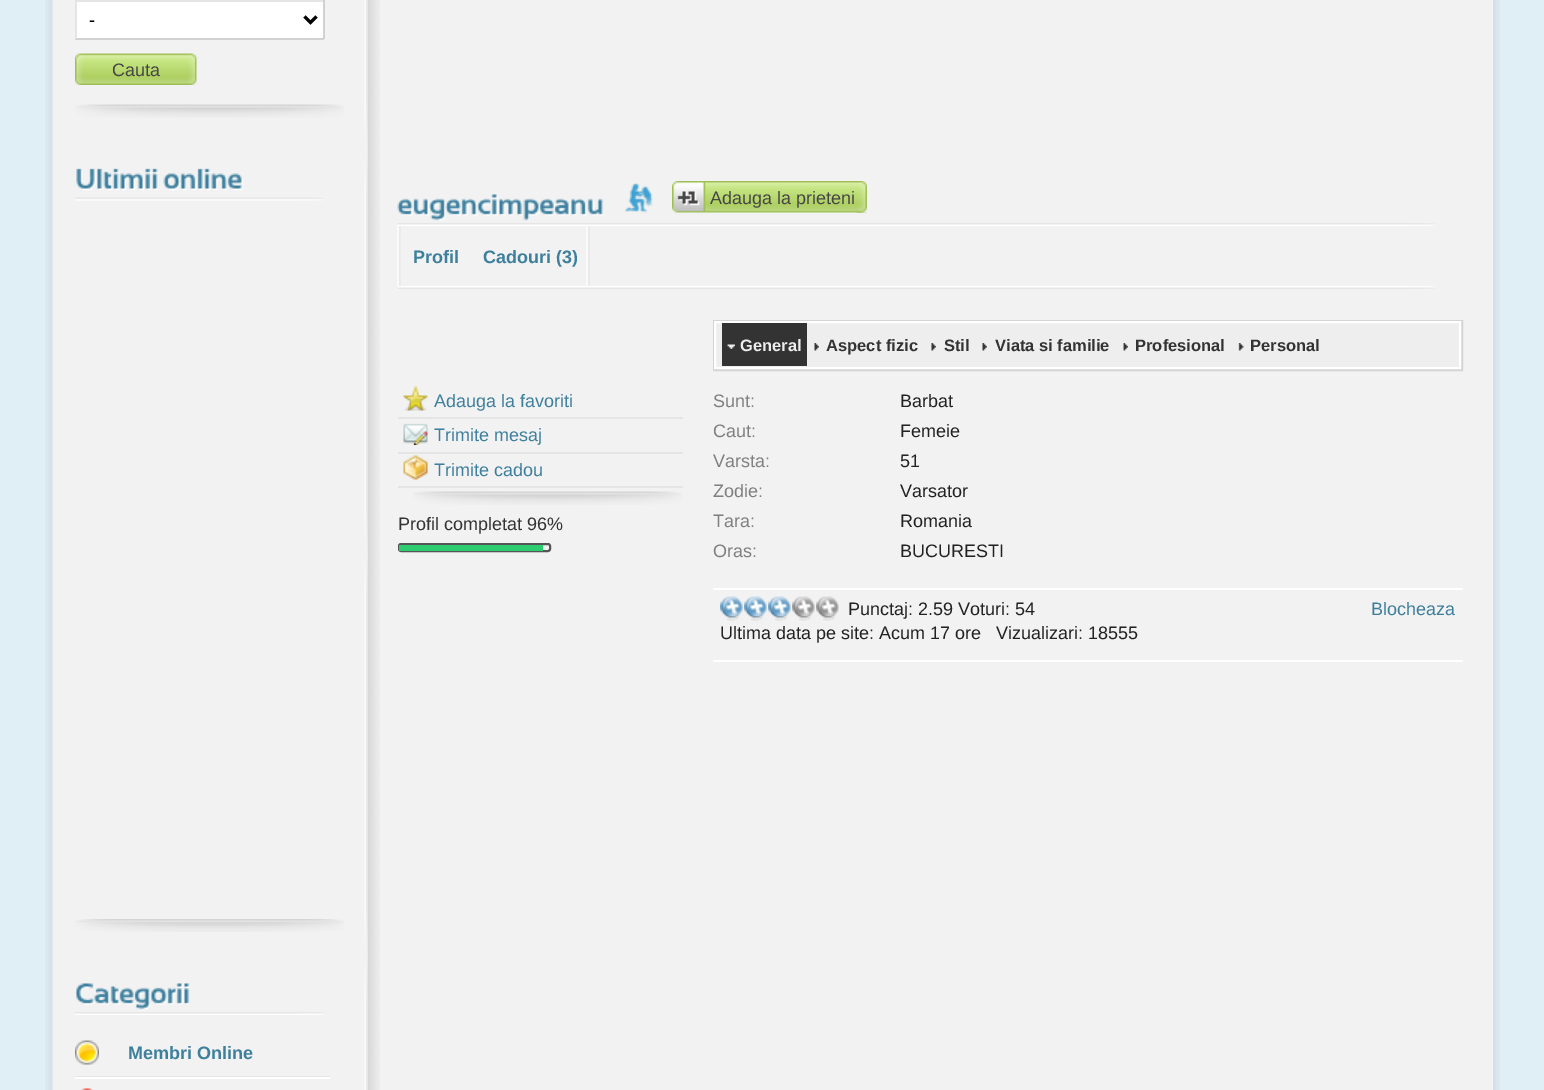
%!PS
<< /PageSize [1544 1090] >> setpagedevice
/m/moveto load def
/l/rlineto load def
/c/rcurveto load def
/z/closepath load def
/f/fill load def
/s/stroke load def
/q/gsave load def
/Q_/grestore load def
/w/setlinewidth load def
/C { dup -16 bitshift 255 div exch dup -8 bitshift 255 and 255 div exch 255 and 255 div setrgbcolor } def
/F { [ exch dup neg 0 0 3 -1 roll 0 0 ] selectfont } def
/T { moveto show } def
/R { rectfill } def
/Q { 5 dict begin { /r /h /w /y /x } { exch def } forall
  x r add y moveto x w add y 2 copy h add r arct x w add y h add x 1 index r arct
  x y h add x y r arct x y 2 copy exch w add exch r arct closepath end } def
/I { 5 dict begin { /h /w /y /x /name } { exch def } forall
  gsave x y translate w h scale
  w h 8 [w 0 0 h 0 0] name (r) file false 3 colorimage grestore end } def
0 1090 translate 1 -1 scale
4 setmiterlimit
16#E0EEF5 C
0 0 1544 1090 R
(1.rgb) 45 0 1455 1090 I
16#F2F2F2 C
1492 0 1 1090 R
(2.rgb) 367 0 13 1090 I
(3.rgb) 364 0 4 1090 I
(4.rgb) 75 104 269 14 I
16#FFFFFF C
77 2 246 36 R
16#E5E5E5 C
75 0 249 2 R
16#D1D1D1 C
323 0 2 39 R
75 38 249 2 R
16#E5E5E5 C
75 0 2 39 R
16#000000 C
3 w
304.5 16.5 m 6 6 l 6 -6 l s
/LiberationSans-Regular 18 F
(-) 89 26 T
(5.rgb) 75 53 122 32 I
16#474646 C
(Cauta) 112 76 T
(6.rgb) 75 919 269 13 I
(7.rgb) 75 197 249 4 I
(8.rgb) 76 168 83 23 I
(9.rgb) 163 168 80 23 I
(10.rgb) 75 1012 251 3 I
(11.rgb) 75 983 115 28 I
(12.rgb) 75 1040 24 25 I
16#E5E5E5 C
75 1076 255 1 R
/LiberationSans-Bold 18 F
16#3E7F9D C
(Membri Online) 128 1059 T
(13.rgb) 81 1088 12 2 I
16#FFFFFF C
75 1077 255 2 R
(14.rgb) 397 223 1039 3 I
(15.rgb) 397 194 207 27 I
(16.rgb) 625 182 28 31 I
(17.rgb) 672 181 195 32 I
(18.rgb) 856 181 11 32 I
/LiberationSans-Regular 18 F
16#474646 C
(Adauga la prieteni) 710 204 T
(19.rgb) 397 226 4 60 I
(20.rgb) 398 286 1038 3 I
/LiberationSans-Bold 18 F
16#3E7F9D C
(Profil) 413 263 T
(19.rgb) 586 226 4 60 I
(Cadouri \(3\)) 483 263 T
(21.rgb) 413 491 269 14 I
16#E5E5E5 C
398 417 285 2 R
(22.rgb) 403 386 25 25 I
/LiberationSans-Regular 18 F
16#3E7F9D C
(Adauga la favoriti) 434 407 T
16#E5E5E5 C
398 452 285 2 R
(23.rgb) 403 423 25 22 I
16#3E7F9D C
(Trimite mesaj) 434 441 T
16#E5E5E5 C
398 486 285 2 R
(24.rgb) 403 455 25 25 I
16#3E7F9D C
(Trimite cadou) 434 476 T
16#333333 C
(Profil completat 96%) 398 530 T
16#555555 C
2 w
399 544 151 7 2 Q s
16#2ECC71 C
400.5 545 m 142.5 0 l 0 6 l -142.5 0 l -1 0 -1.5 -.5 -1.5 -1.5 c 0 -3 l 0 -1 .5 -1.5 1.5 -1.5 c z f
16#FFFFFF C
713 660 750 2 R
16#D4D4D4 C
714 321 748 49 rectstroke
16#EEEEEE C
715 322 m 745 0 l 0 46 l -745 0 l z q f Q_
16#FFFFFF C
s
16#333333 C
722 323 85 43 R
(25.rgb) 727 344 8 5 I
/LiberationSans-Bold 16.5 F
16#EEEEEE C
(General) 740 351 T
(26.rgb) 814 343 5 8 I
16#333333 C
(Aspect fizic) 826 351 T
(26.rgb) 931 343 5 8 I
(Stil) 944 351 T
(26.rgb) 982 343 5 8 I
(Viata si familie) 995 351 T
(27.rgb) 1123 343 5 8 I
(Profesional) 1135 351 T
(28.rgb) 1238 343 6 8 I
(Personal) 1250 351 T
/LiberationSans-Regular 18 F
16#808080 C
(Sunt:) 713 407 T
16#222222 C
(Barbat) 900 407 T
16#808080 C
(Caut:) 713 437 T
16#222222 C
(Femeie) 900 437 T
16#808080 C
(Varsta:) 713 467 T
16#222222 C
(51) 900 467 T
16#808080 C
(Zodie:) 713 497 T
16#222222 C
(Varsator) 900 497 T
16#808080 C
(Tara:) 713 527 T
16#222222 C
(Romania) 900 527 T
16#808080 C
(Oras:) 713 557 T
16#222222 C
(BUCURESTI) 900 557 T
16#FFFFFF C
713 588 750 2 R
(29.rgb) 720 596 23 25 I
(29.rgb) 744 596 23 25 I
(30.rgb) 768 596 23 25 I
(31.rgb) 792 596 23 25 I
(31.rgb) 816 596 23 25 I
16#222222 C
(Punctaj: 2.59 Voturi: 54) 848 615 T
16#3E7F9D C
(Blocheaza) 1371 615 T
16#222222 C
(Ultima data pe site: Acum 17 ore) 720 639 T
(Vizualizari: 18555) 996 639 T
showpage
